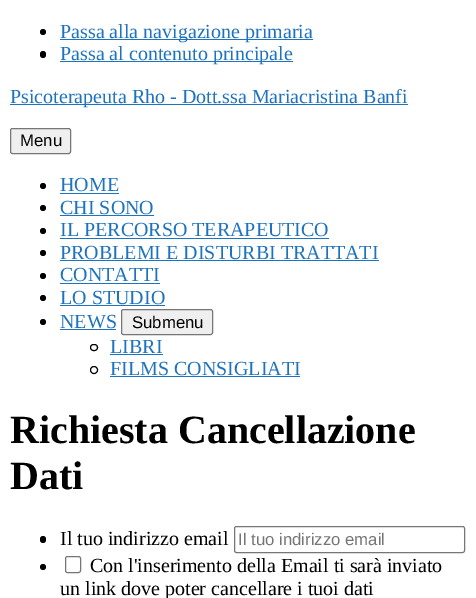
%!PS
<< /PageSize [476 598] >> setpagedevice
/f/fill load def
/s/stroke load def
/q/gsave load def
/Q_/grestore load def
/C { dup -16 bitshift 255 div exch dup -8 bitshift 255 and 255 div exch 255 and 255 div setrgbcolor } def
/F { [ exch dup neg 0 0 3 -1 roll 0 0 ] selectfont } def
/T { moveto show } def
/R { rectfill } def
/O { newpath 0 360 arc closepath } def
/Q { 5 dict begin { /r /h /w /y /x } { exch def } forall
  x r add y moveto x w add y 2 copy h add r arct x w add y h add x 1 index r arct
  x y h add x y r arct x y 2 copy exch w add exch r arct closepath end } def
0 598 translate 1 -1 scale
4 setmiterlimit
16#FFFFFF C
0 0 476 598 R
16#000000 C
43 32 3 O f
16#1E73BE C
60 39 253 1 R
/LiberationSerif-Regular 20 F
(Passa alla navigazione primaria) 60 38 T
16#000000 C
40 51 6 7 3 Q f
16#1E73BE C
60 61 233 1 R
(Passa al contenuto principale) 60 60 T
10 104 398 1 R
(Psicoterapeuta Rho - Dott.ssa Mariacristina Banfi) 10 103 T
16#EFEFEF C
10.5 128.5 60 25 2 Q q f Q_
16#767676 C
s
/LiberationSans-Regular 16.75 F
16#000000 C
(Menu) 20 146 T
43 186 3 O f
/LiberationSerif-Regular 20 F
16#1E73BE C
(HOME) 60 191 T
60 193 59 1 R
16#000000 C
43 208 3 O f
16#1E73BE C
(CHI SONO) 60 214 T
60 215 94 1 R
16#000000 C
43 231 3 O f
16#1E73BE C
(IL PERCORSO TERAPEUTICO) 60 236 T
60 238 269 1 R
16#000000 C
43 253 3 O f
16#1E73BE C
(PROBLEMI E DISTURBI TRATTATI) 60 259 T
60 260 319 1 R
16#000000 C
43 276 3 O f
16#1E73BE C
(CONTATTI) 60 281 T
60 283 100 1 R
16#000000 C
43 298 3 O f
16#1E73BE C
(LO STUDIO) 60 304 T
60 305 105 1 R
16#000000 C
43 322 3 O f
16#1E73BE C
(NEWS) 60 328 T
60 329 56 1 R
16#EFEFEF C
121.5 309.5 91 25 2 Q q f Q_
16#767676 C
s
/LiberationSans-Regular 16.75 F
16#000000 C
(Submenu) 132 328 T
90.5 344.5 7 6 3 Q s
/LiberationSerif-Regular 20 F
16#1E73BE C
(LIBRI) 110 353 T
110 354 53 1 R
16#000000 C
94 370 3.5 O s
16#1E73BE C
(FILMS CONSIGLIATI) 110 375 T
110 376 190 1 R
/LiberationSerif-Bold 40 F
16#000000 C
(Richiesta Cancellazione) 10 443 T
(Dati) 10 489 T
40 536 6 7 3 Q f
/LiberationSerif-Regular 20 F
(Il tuo indirizzo email) 60 545 T
16#767676 C
234.5 526.5 230 26 2 Q s
/LiberationSans-Regular 16.75 F
16#757575 C
(Il tuo indirizzo email) 238 545 T
16#000000 C
43 567 3 O f
16#767676 C
65.5 556.5 15 16 2 Q s
/LiberationSerif-Regular 20 F
16#000000 C
(Con l'inserimento della Email ti sarà inviato) 90 572 T
(un link dove poter cancellare i tuoi dati) 60 595 T
showpage
